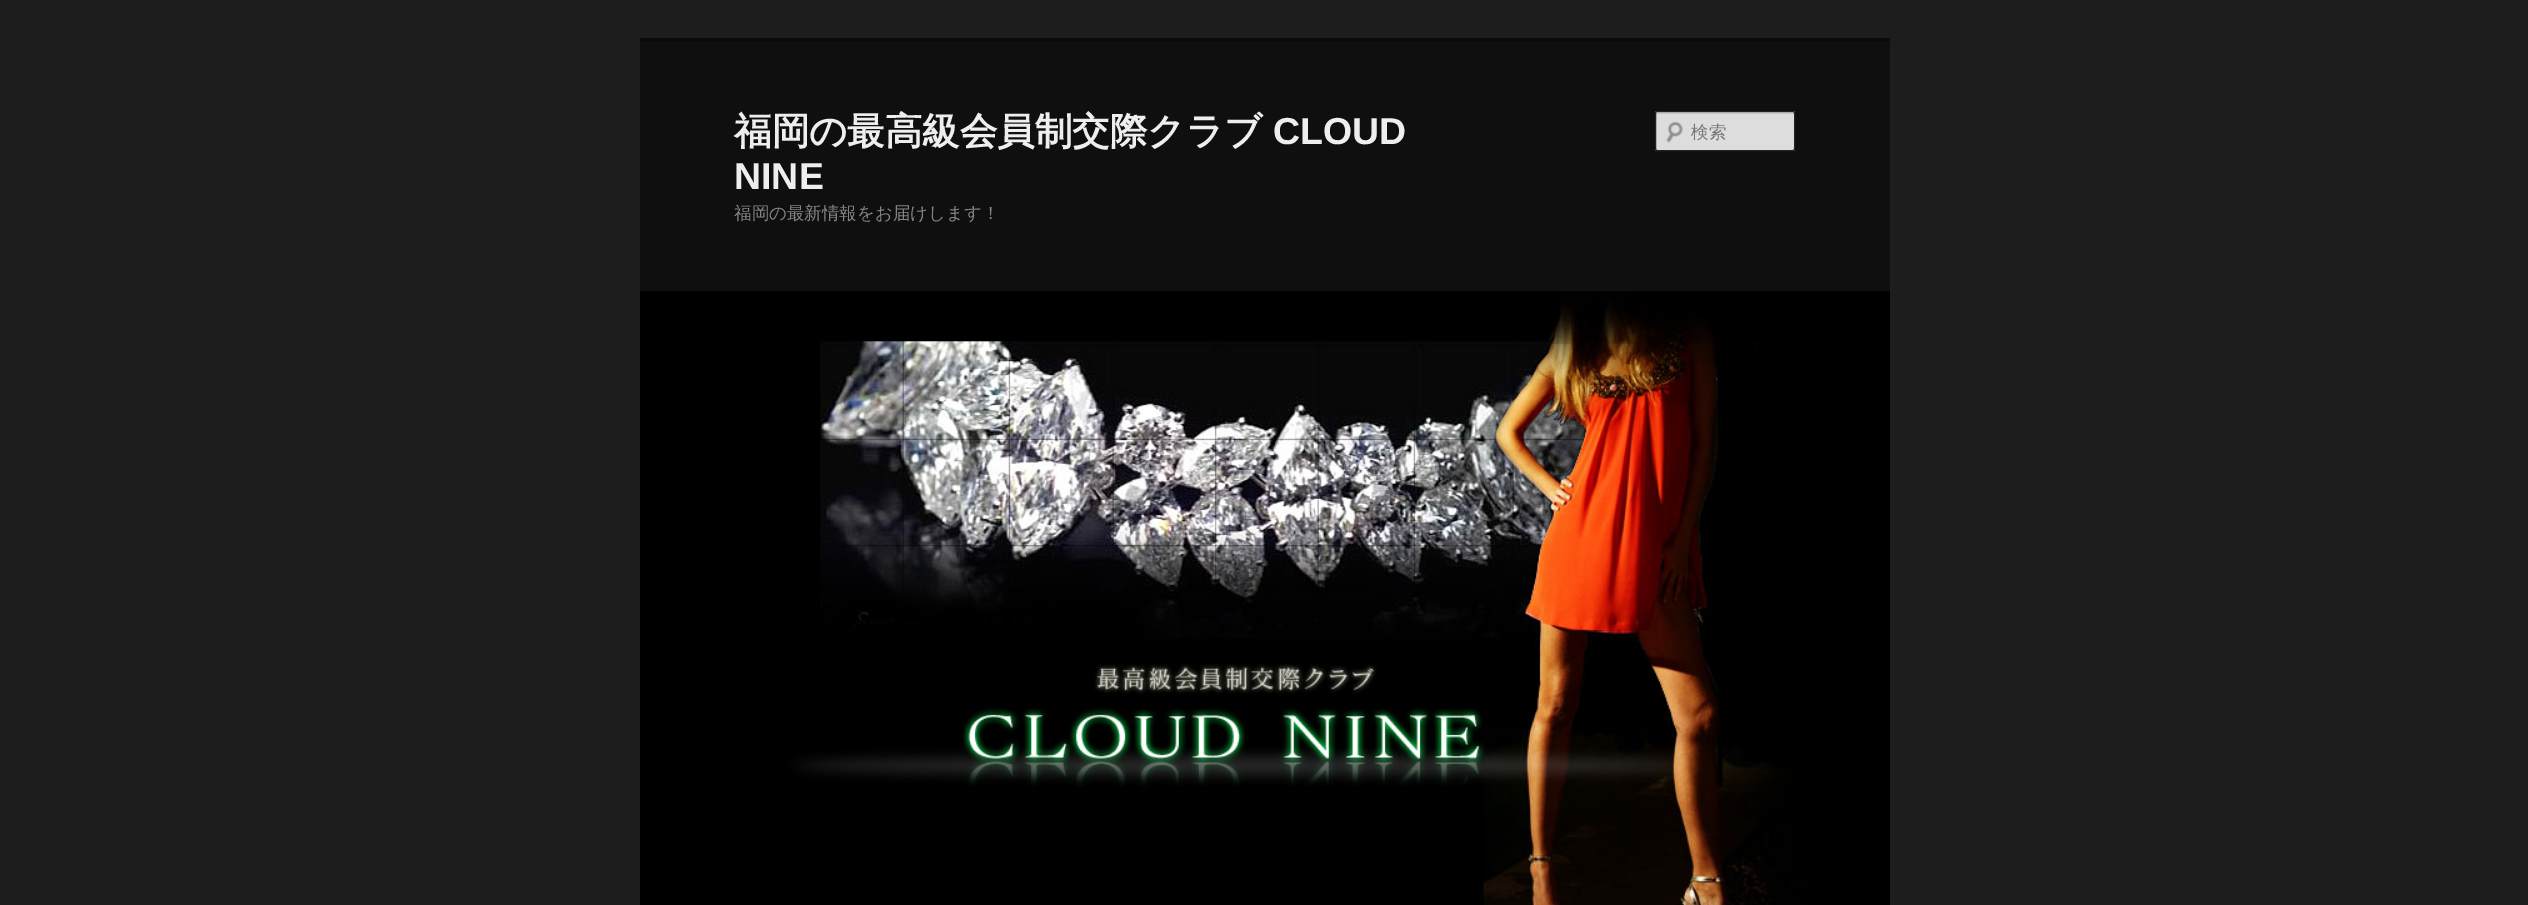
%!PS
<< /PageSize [2528 905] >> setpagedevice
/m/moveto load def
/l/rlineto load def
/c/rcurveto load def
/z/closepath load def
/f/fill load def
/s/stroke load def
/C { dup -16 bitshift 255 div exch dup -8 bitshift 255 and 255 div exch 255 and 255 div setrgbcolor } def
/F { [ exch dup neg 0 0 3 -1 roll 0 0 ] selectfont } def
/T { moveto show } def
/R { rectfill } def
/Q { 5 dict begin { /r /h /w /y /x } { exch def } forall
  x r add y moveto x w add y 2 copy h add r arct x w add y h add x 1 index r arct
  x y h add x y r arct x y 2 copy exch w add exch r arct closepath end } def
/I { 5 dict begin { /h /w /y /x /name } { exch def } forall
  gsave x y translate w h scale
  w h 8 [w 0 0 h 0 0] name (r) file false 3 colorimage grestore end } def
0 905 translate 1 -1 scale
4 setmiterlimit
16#1D1D1D C
0 0 2528 905 R
16#0F0F0F C
640 41 1250 251 R
16#0A0A0A C
640 38 1250 3 R
/WenQuanYiZenHei-Bold 37.5 F
16#EEEEEE C
(福岡の最高級会員制交際クラブ) 734 144 T
/LiberationSans-Bold 37.5 F
(CLOUD) 1273 144 T
(NINE) 734 189 T
/WenQuanYiZenHei-Medium 17.5 F
16#858585 C
(福岡の最新情報をお届けします！) 734 219 T
16#DDDDDD C
1655 111 140 40 2.5 Q f
(1.rgb) 1666 121 17 22 I
16#C7C7C7 C
1658 114 m 134 0 l 1 0 2 0 2 1 c 0 -1 0 -2 -1 -2 c -136 0 l -1 0 -1 1 -1 2 c 0 -1 1 -1 2 -1 c z f
16#222222 C
1655.5 111.5 139 39 2 Q s
16#757575 C
(検索) 1691 138 T
(2.rgb) 640 291 1250 614 I
showpage
